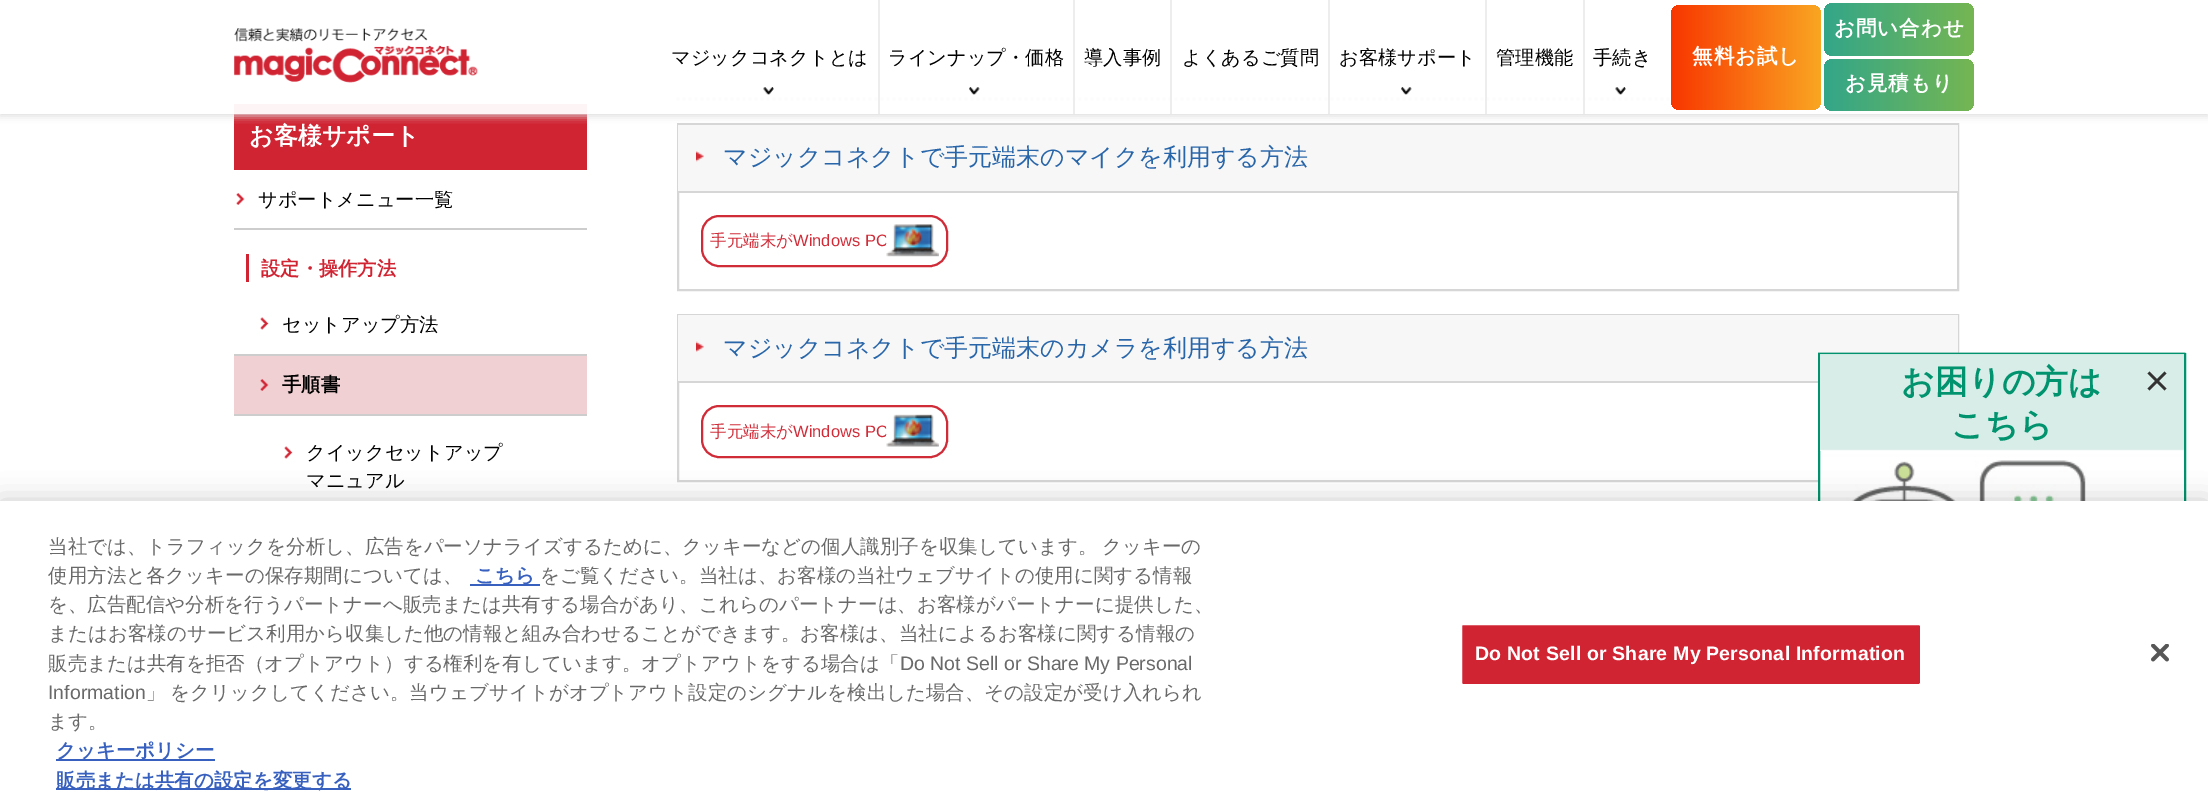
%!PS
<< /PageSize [2208 810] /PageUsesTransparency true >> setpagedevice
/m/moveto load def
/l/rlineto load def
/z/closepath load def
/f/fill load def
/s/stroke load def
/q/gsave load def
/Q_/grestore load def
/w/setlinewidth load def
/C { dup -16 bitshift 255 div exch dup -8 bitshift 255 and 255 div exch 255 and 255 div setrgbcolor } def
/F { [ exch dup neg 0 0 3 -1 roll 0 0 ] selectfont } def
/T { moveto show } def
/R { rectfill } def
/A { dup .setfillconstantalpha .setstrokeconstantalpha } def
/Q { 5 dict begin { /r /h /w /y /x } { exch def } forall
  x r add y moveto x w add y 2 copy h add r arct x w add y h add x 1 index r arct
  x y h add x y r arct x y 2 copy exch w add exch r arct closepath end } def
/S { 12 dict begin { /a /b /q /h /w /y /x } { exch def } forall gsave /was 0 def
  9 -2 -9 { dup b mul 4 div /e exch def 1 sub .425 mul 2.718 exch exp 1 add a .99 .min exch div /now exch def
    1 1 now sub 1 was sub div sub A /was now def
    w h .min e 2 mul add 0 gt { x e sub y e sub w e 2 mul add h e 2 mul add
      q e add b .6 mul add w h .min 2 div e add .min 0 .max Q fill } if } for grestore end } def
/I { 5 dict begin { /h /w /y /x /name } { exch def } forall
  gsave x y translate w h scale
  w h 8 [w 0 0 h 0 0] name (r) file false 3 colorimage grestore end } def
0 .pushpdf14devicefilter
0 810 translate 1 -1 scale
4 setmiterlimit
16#FFFFFF C
0 0 2208 810 R
16#D12433 C
234 114 353 56 R
16#FDF4F5 C
234 104 353 10 R
16#FCFCFC C
3 w
[3 3] 0 setdash
676.5 99 m 1282.5 0 l s
16#D6D6D6 C
2 w
[] 0 setdash
678 124 1280 166 rectstroke
16#F7F7F7 C
678 125 1280 66 R
q
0 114 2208 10 rectclip
16#DBDBDB C
0 2 2208 114 0 4 1 S
Q_
(1.rgb) 234 28 244 55 I
16#EDEDED C
878 0 2 114 R
/WenQuanYiZenHei-Medium 19.25 F
16#000000 C
(マジックコネクトとは) 671 64 T
(2.rgb) 763 87 11 8 I
16#EDEDED C
1073 0 2 114 R
16#000000 C
(ラインナップ・価格) 888 64 T
(3.rgb) 969 87 11 8 I
16#EDEDED C
1170 0 2 114 R
16#000000 C
(導入事例) 1084 64 T
16#EDEDED C
1328 0 2 114 R
16#000000 C
(よくあるご質問) 1182 64 T
16#EDEDED C
1485 0 2 114 R
16#000000 C
(お客様サポート) 1339 64 T
(3.rgb) 1401 87 11 8 I
16#EDEDED C
1583 0 2 114 R
16#000000 C
(管理機能) 1496 64 T
(手続き) 1593 64 T
(2.rgb) 1615 87 11 8 I
q 1671 5 150 105 9 Q clip newpath
<< /ShadingType 2 /ColorSpace /DeviceRGB /Coords [1521 57 1821 57] /Extend [true true] /Function << /FunctionType 3 /Domain [0 1] /Functions [<< /FunctionType 2 /Domain [0 1] /C0 [.973 .212 0] /C1 [.973 .212 0] /N 1 >> << /FunctionType 2 /Domain [0 1] /C0 [.973 .212 0] /C1 [.98 .651 .133] /N 1 >>] /Bounds [.5] /Encode [0 1 0 1] >> >> shfill Q_
/WenQuanYiZenHei-Bold 20.5 F
16#FFFFFF C
1692 63 m 1 0 (無料お試し) ashow
q 1824 3 150 53 9 Q clip newpath
<< /ShadingType 2 /ColorSpace /DeviceRGB /Coords [1674 29 1974 29] /Extend [true true] /Function << /FunctionType 3 /Domain [0 1] /Functions [<< /FunctionType 2 /Domain [0 1] /C0 [.2 .651 .537] /C1 [.2 .651 .537] /N 1 >> << /FunctionType 2 /Domain [0 1] /C0 [.2 .651 .537] /C1 [.459 .714 .322] /N 1 >>] /Bounds [.5] /Encode [0 1 0 1] >> >> shfill Q_
1834 35 m 1 0 (お問い合わせ) ashow
q 1824 59 150 52 9 Q clip newpath
<< /ShadingType 2 /ColorSpace /DeviceRGB /Coords [1674 85 1974 85] /Extend [true true] /Function << /FunctionType 3 /Domain [0 1] /Functions [<< /FunctionType 2 /Domain [0 1] /C0 [.2 .651 .537] /C1 [.2 .651 .537] /N 1 >> << /FunctionType 2 /Domain [0 1] /C0 [.2 .651 .537] /C1 [.459 .714 .322] /N 1 >>] /Bounds [.5] /Encode [0 1 0 1] >> >> shfill Q_
1845 90 m 1 0 (お見積もり) ashow
/WenQuanYiZenHei-Bold 24 F
(お客様サポート) 249 144 T
(4.rgb) 236 193 9 12 I
16#CDCDCD C
234 228 353 2 R
/WenQuanYiZenHei-Medium 19.25 F
16#000000 C
(サポートメニュー一覧) 258 206 T
16#D12433 C
246 254 3 28 R
/WenQuanYiZenHei-Bold 19.25 F
(設定・操作方法) 261 275 T
(5.rgb) 260 317 9 13 I
16#CDCDCD C
234 354 353 2 R
/WenQuanYiZenHei-Medium 19.25 F
16#000000 C
(セットアップ方法) 282 331 T
16#F1D0D3 C
234 356 353 58 R
(6.rgb) 260 379 9 12 I
16#CDCDCD C
234 414 353 2 R
/WenQuanYiZenHei-Bold 19.25 F
16#000000 C
(手順書) 282 391 T
(7.rgb) 284 446 9 13 I
/WenQuanYiZenHei-Medium 19.25 F
(クイックセットアップ) 306 459 T
(マニュアル) 306 487 T
(8.rgb) 696 151 8 11 I
/WenQuanYiZenHei-Medium 24 F
16#2966A9 C
(マジックコネクトで手元端末のマイクを利用する方法) 723 165 T
16#D6D6D6 C
678 191 1280 2 R
16#CF2C38 C
702 216 245 50 17 Q s
/WenQuanYiZenHei-Medium 16.5 F
(手元端末が) 710 246 T
/LiberationSans-Regular 16.5 F
(Windows PC) 793 246 T
(9.rgb) 886 224 53 33 I
16#D6D6D6 C
678 315 1280 166 rectstroke
16#F7F7F7 C
678 315 1280 66 R
(10.rgb) 696 341 8 11 I
/WenQuanYiZenHei-Medium 24 F
16#2966A9 C
(マジックコネクトで手元端末のカメラを利用する方法) 723 356 T
16#D6D6D6 C
678 381 1140 2 R
16#CF2C38 C
702 406 245 51 17 Q s
/WenQuanYiZenHei-Medium 16.5 F
(手元端末が) 710 437 T
/LiberationSans-Regular 16.5 F
(Windows PC) 793 437 T
(11.rgb) 886 414 53 33 I
(12.rgb) 1818 352 368 149 I
16#00936E C
1819 354 366 335 rectstroke
0.8 A
16#FFFFFF C
1820 354 364 97 R
/WenQuanYiZenHei-Bold 33 F
1 A
16#00936E C
(お困りの方は) 1901 393 T
(こちら) 1951 436 T
16#333333 C
2164.5 371.5 m 2 2 l -17 17 l -2 -2 l z f
2147.5 373.5 m 2 -2 l 17 17 l -2 2 l z f
16#000000 C
0 501 2208 309 0 13.5 .2 S
16#FFFFFF C
0 501 2208 309 R
/WenQuanYiZenHei-Medium 19.5 F
16#696969 C
48 553 m -1 0 32 (当社では、トラフィックを分析し、広告をパーソナライズするために、クッキーなどの個人識別子を収集しています。 クッキーの) widthshow
(使用方法と各クッキーの保存期間については、) 48 582 T
16#3860BE C
470 584 70 2 R
/WenQuanYiZenHei-Bold 19.5 F
(こちら) 475 582 T
/WenQuanYiZenHei-Medium 19.5 F
16#696969 C
(をご覧ください。当社は、お客様の当社ウェブサイトの使用に関する情報) 540 582 T
(を、広告配信や分析を行うパートナーへ販売または共有する場合があり、これらのパートナーは、お客様がパートナーに提供した、) 48 611 T
(またはお客様のサービス利用から収集した他の情報と組み合わせることができます。お客様は、当社によるお客様に関する情報の) 48 640 T
(販売または共有を拒否（オプトアウト）する権利を有しています。オプトアウトをする場合は「) 48 670 T
/LiberationSans-Regular 19.5 F
(Do Not Sell or Share My Personal) 900 670 T
(Information) 48 699 T
/WenQuanYiZenHei-Medium 19.5 F
146 699 m -1 0 32 (」 をクリックしてください。当ウェブサイトがオプトアウト設定のシグナルを検出した場合、その設定が受け入れられ) widthshow
(ます。) 48 728 T
16#3860BE C
56 759 159 2 R
/WenQuanYiZenHei-Bold 19.5 F
(クッキーポリシー) 56 757 T
56 788 295 2 R
(販売または共有の設定を変更する) 56 787 T
16#D12433 C
1461 624 460 61 2 Q q f Q_
16#FFFFFF C
s
/LiberationSans-Bold 19.5 F
1475 660 m .2 0 (Do Not Sell or Share My Personal Information) ashow
(13.rgb) 2151 644 18 18 I
.poppdf14devicefilter showpage
